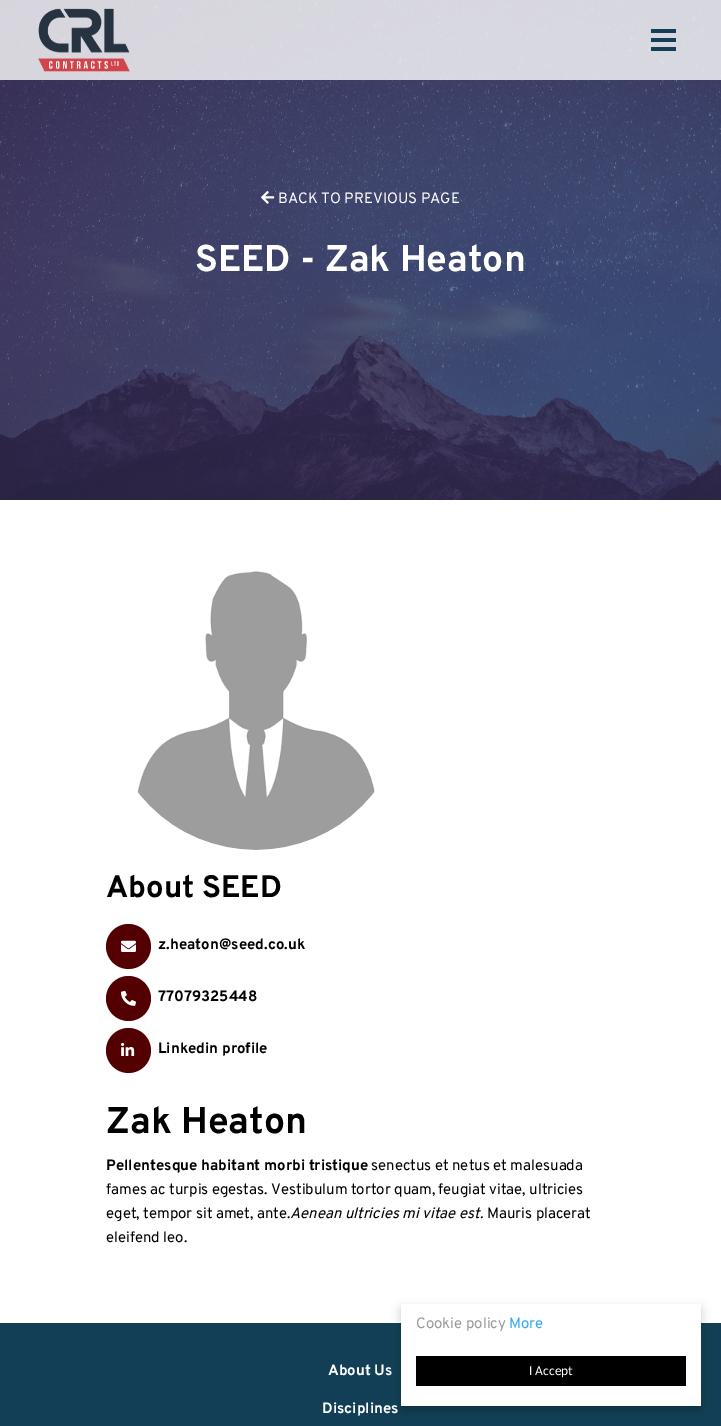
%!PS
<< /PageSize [721 1426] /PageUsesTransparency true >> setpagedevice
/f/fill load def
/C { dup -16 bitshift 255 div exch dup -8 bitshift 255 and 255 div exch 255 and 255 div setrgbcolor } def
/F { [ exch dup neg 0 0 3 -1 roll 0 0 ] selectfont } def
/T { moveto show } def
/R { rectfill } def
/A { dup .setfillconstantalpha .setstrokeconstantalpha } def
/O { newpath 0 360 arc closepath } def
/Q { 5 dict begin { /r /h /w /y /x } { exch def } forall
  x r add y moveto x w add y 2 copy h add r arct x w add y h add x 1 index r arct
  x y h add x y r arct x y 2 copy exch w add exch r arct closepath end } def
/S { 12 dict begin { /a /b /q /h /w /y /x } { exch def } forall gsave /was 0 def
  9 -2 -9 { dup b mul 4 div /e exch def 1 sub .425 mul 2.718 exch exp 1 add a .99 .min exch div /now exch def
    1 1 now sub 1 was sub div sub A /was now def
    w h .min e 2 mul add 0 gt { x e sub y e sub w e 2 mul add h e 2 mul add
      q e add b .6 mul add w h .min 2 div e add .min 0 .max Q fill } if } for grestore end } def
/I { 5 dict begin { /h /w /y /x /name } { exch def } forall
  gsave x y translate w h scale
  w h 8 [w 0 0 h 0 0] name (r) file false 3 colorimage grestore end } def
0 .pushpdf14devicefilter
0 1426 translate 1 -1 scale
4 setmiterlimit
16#FFFFFF C
0 0 721 1426 R
16#2F2B3D C
0 0 721 500 R
(2.rgb) 0 0 721 500 I
0.8 A
16#FFFFFF C
0 0 721 80 R
1 A
(1.rgb) 38 8 92 64 I
16#123F56 C
651 38 25 4 R
651 29 25 4 R
651 47 25 4 R
(3.rgb) 261 191 14 13 I
/Overpass-Regular 15 F
16#FFFFFF C
(BACK TO PREVIOUS PAGE) 278 203 T
/Overpass-Bold 37.25 F
(SEED - Zak Heaton) 195 271 T
(4.rgb) 137 571 238 279 I
/Overpass-Bold 31 F
16#000000 C
(About SEED) 106 897 T
16#520001 C
128.5 946.5 22.5 O f
(5.rgb) 121 940 15 12 I
/Overpass-Bold 15 F
16#000000 C
(z.heaton@seed.co.uk) 158 949 T
16#520001 C
128.5 998.5 22.5 O f
(6.rgb) 121 990 15 16 I
16#000000 C
(77079325448) 158 1001 T
16#520001 C
128.5 1050.5 22.5 O f
(7.rgb) 121 1042 14 14 I
16#000000 C
(Linkedin profile) 158 1053 T
/Overpass-Bold 37.25 F
(Zak Heaton) 106 1133 T
/Overpass-Bold 15 F
(Pellentesque habitant morbi tristique) 106 1170 T
/Overpass-Regular 15 F
(senectus et netus et malesuada) 371 1170 T
(fames ac turpis egestas. Vestibulum tortor quam, feugiat vitae, ultricies) 106 1194 T
(eget, tempor sit amet, ante.) 106 1218 T
/Overpass-Italic 15 F
(Aenean ultricies mi vitae est.) 290 1218 T
/Overpass-Regular 15 F
(Mauris placerat) 487 1218 T
(eleifend leo.) 106 1242 T
16#123F56 C
0 1323 721 103 R
16#000000 C
401 1309 300 102 0 5 .2 S
16#FFFFFF C
401 1304 300 102 R
16#999999 C
(Cookie policy) 416 1328 T
16#31A8F0 C
(More) 509 1328 T
16#000000 C
416 1356 270 30 R
/Carlito-Regular 13.5 F
16#FFFFFF C
(I Accept) 529 1375 T
/Overpass-Bold 15 F
(About Us) 328 1375 T
(Disciplines) 322 1413 T
.poppdf14devicefilter showpage
